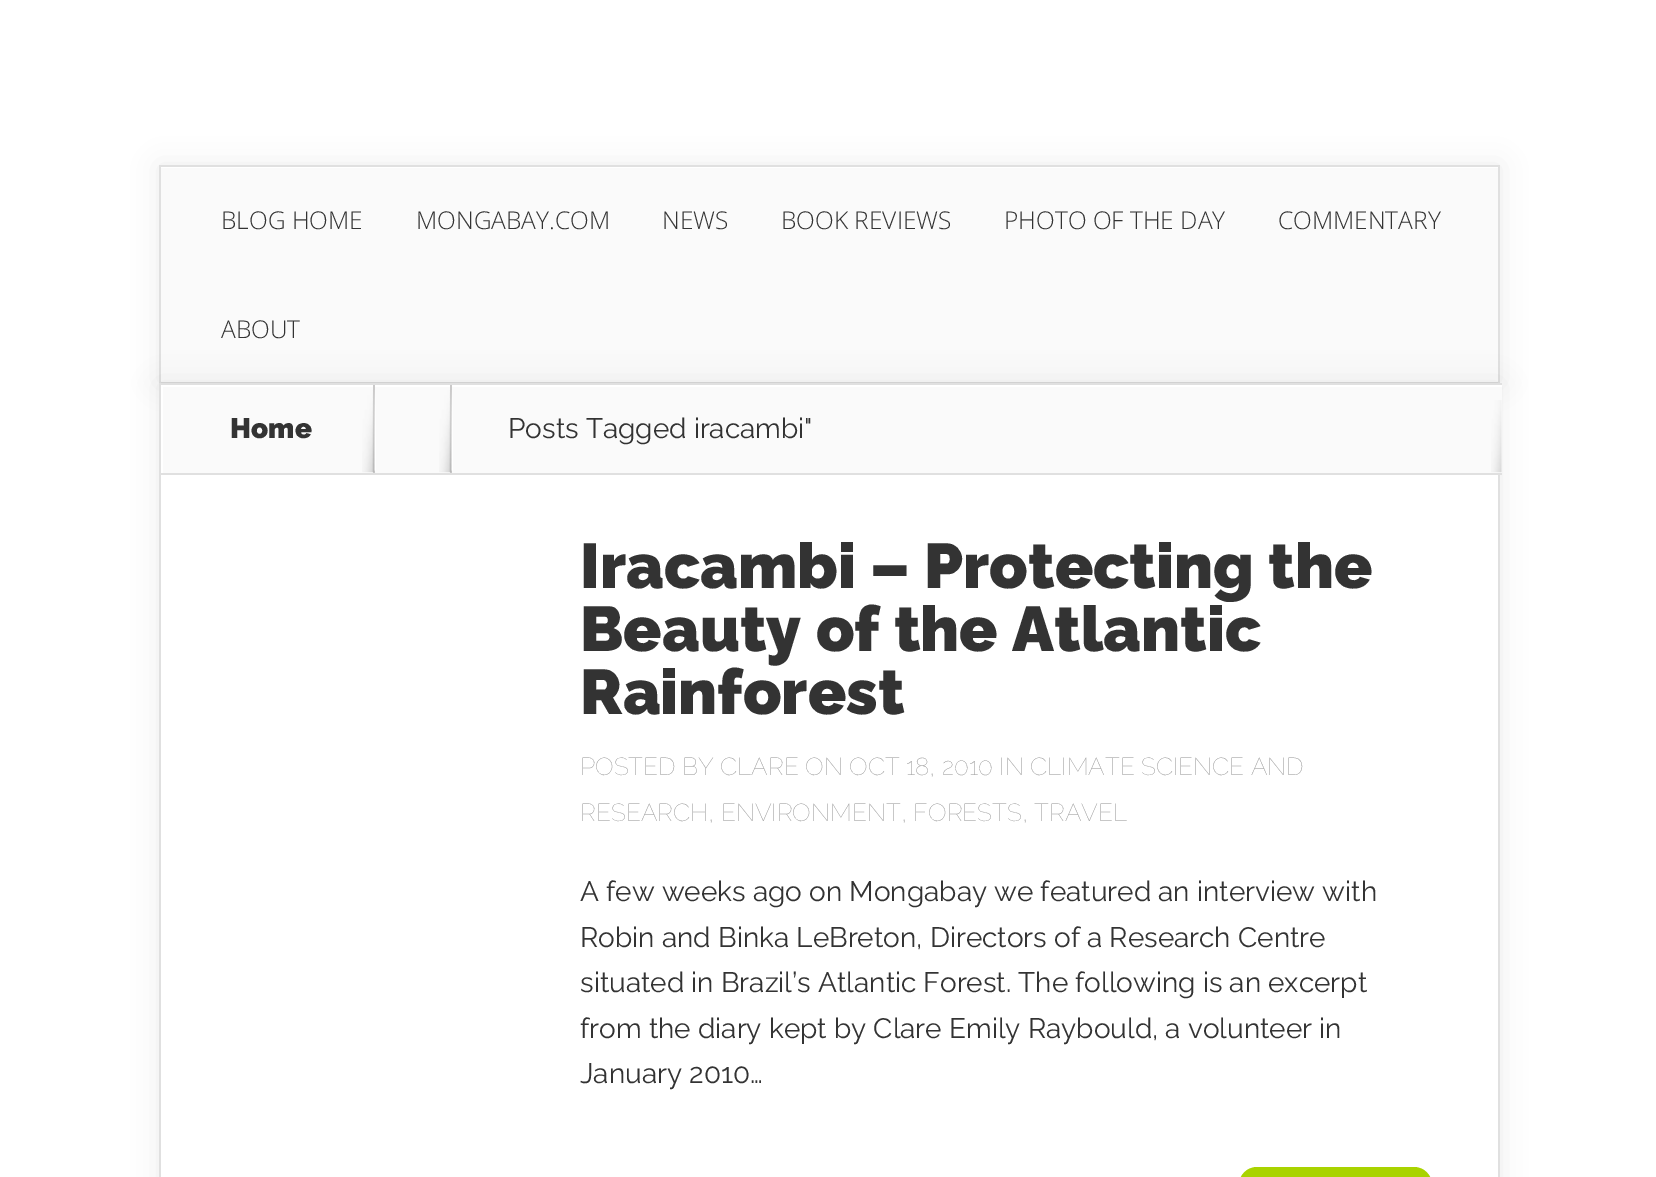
%!PS
<< /PageSize [1656 1177] /PageUsesTransparency true >> setpagedevice
/m/moveto load def
/l/rlineto load def
/z/closepath load def
/f/fill load def
/q/gsave load def
/Q_/grestore load def
/C { dup -16 bitshift 255 div exch dup -8 bitshift 255 and 255 div exch 255 and 255 div setrgbcolor } def
/F { [ exch dup neg 0 0 3 -1 roll 0 0 ] selectfont } def
/T { moveto show } def
/R { rectfill } def
/A { dup .setfillconstantalpha .setstrokeconstantalpha } def
/Q { 5 dict begin { /r /h /w /y /x } { exch def } forall
  x r add y moveto x w add y 2 copy h add r arct x w add y h add x 1 index r arct
  x y h add x y r arct x y 2 copy exch w add exch r arct closepath end } def
/S { 12 dict begin { /a /b /q /h /w /y /x } { exch def } forall gsave /was 0 def
  9 -2 -9 { dup b mul 4 div /e exch def 1 sub .425 mul 2.718 exch exp 1 add a .99 .min exch div /now exch def
    1 1 now sub 1 was sub div sub A /was now def
    w h .min e 2 mul add 0 gt { x e sub y e sub w e 2 mul add h e 2 mul add
      q e add b .6 mul add w h .min 2 div e add .min 0 .max Q fill } if } for grestore end } def
/I { 5 dict begin { /h /w /y /x /name } { exch def } forall
  gsave x y translate w h scale
  w h 8 [w 0 0 h 0 0] name (r) file false 3 colorimage grestore end } def
0 .pushpdf14devicefilter
0 1177 translate 1 -1 scale
4 setmiterlimit
16#FFFFFF C
0 0 1656 1177 R
16#000000 C
159 165 1341 218 0 13 .07 S
16#FAFAFA C
161 168 1337 214 R
16#DADADA C
161 382 1337 1 R
16#FFFFFF C
161 167 1337 1 R
16#E0E0E0 C
159 165 1341 2 R
1498 165 2 218 R
159 165 2 218 R
/OpenSans-Light 24.5 F
16#333333 C
(BLOG HOME) 221 229 T
(MONGABAY.COM) 416 229 T
(NEWS) 662 229 T
(BOOK REVIEWS) 781 229 T
(PHOTO OF THE DAY) 1004 229 T
(COMMENTARY) 1278 229 T
(ABOUT) 221 338 T
16#000000 C
159 383 1341 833 0 13 .07 S
16#FFFFFF C
161 475 1337 702 R
16#E0E0E0 C
1498 475 2 702 R
159 383 2 794 R
16#FAFAFA C
163 387 1339 86 R
q
161 385 1341 88 rectclip
16#FFFFFF C
-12 212 m 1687 0 l 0 434 l -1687 0 l z 163 387 m 1340 0 l 0 87 l -1340 0 l z eofill
Q_
16#E0E0E0 C
161 383 1341 2 R
161 473 1341 2 R
/Raleway-Black 28 F
16#333333 C
(Home) 230 438 T
16#CAC9C9 C
373 385 2 88 R
(1.rgb) 362 390 14 83 I
450 385 2 88 R
(1.rgb) 439 390 14 83 I
/Raleway-Regular 28 F
16#333333 C
(Posts Tagged iracambi") 508 438 T
(2.rgb) 1491 400 11 73 I
/Raleway-Black 63 F
(Iracambi – Protecting the) 580 588 T
(Beauty of the Atlantic) 580 651 T
(Rainforest) 580 714 T
/Raleway-Thin 24.5 F
16#969696 C
(POSTED BY CLARE ON OCT 18, 2010 IN CLIMATE SCIENCE AND) 580 775 T
(RESEARCH, ENVIRONMENT, FORESTS, TRAVEL) 580 821 T
/Raleway-Regular 28 F
16#333333 C
(A few weeks ago on Mongabay we featured an interview with) 580 901 T
(Robin and Binka LeBreton, Directors of a Research Centre) 580 947 T
(situated in Brazil’s Atlantic Forest. The following is an excerpt) 580 992 T
(from the diary kept by Clare Emily Raybould, a volunteer in) 580 1038 T
(January 2010…) 580 1083 T
16#A9D300 C
1239 1167 193 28 18 Q f
.poppdf14devicefilter showpage
